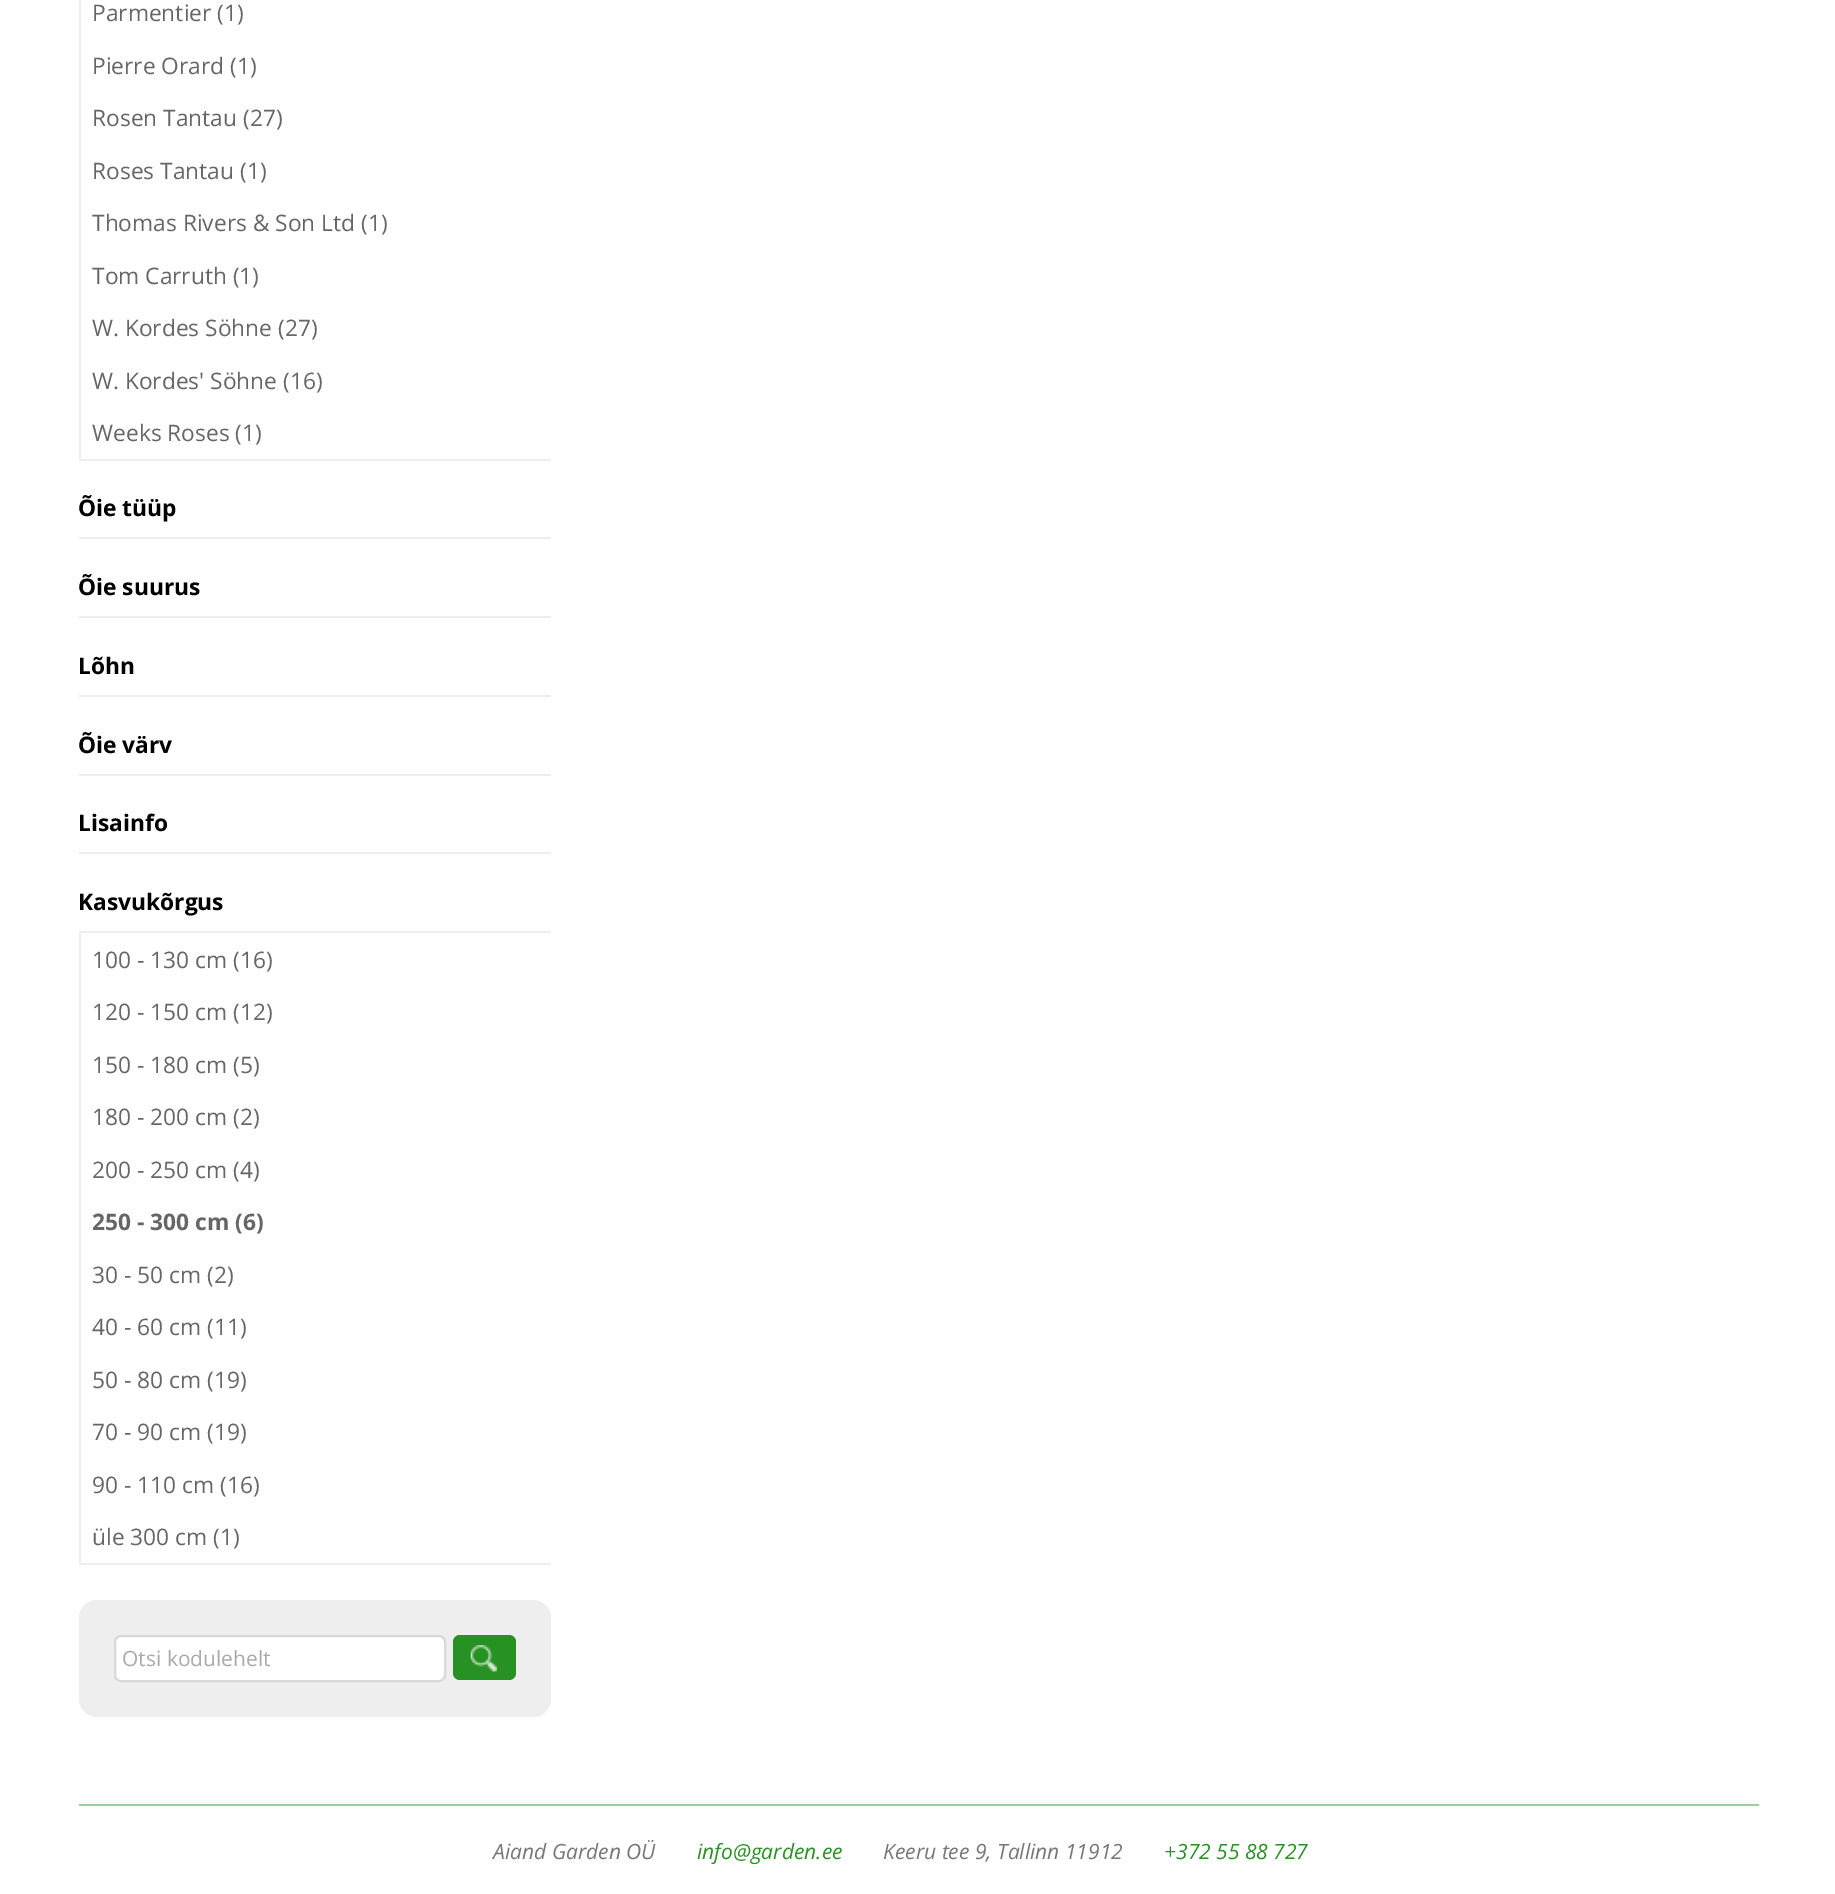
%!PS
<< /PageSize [1835 1894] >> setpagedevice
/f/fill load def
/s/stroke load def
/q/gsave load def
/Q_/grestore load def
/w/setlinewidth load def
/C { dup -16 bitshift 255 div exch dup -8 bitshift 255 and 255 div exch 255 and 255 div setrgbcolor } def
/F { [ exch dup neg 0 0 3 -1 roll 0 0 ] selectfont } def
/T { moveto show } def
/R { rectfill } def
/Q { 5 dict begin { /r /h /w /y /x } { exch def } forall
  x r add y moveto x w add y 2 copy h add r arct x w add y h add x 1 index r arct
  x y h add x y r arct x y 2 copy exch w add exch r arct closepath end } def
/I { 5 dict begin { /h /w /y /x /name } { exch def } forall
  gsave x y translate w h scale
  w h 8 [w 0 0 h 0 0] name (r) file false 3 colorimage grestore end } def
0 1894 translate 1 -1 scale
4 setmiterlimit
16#FFFFFF C
0 0 1835 1894 R
16#EEEEEE C
79 459 472 2 R
79 0 2 460 R
/OpenSans-Regular 22.75 F
16#666666 C
(Parmentier \(1\)) 92 21 T
(Pierre Orard \(1\)) 92 74 T
(Rosen Tantau \(27\)) 92 126 T
(Roses Tantau \(1\)) 92 179 T
(Thomas Rivers & Son Ltd \(1\)) 92 231 T
(Tom Carruth \(1\)) 92 284 T
(W. Kordes Söhne \(27\)) 92 336 T
(W. Kordes' Söhne \(16\)) 92 389 T
(Weeks Roses \(1\)) 92 441 T
16#EEEEEE C
79 537 472 2 R
/OpenSans-Bold 22.75 F
16#000000 C
(Õie tüüp) 78 516 T
16#EEEEEE C
79 616 472 2 R
16#000000 C
(Õie suurus) 78 595 T
16#EEEEEE C
79 695 472 2 R
16#000000 C
(Lõhn) 78 674 T
16#EEEEEE C
79 774 472 2 R
16#000000 C
(Õie värv) 78 753 T
16#EEEEEE C
79 852 472 2 R
16#000000 C
(Lisainfo) 78 831 T
16#EEEEEE C
79 931 472 2 R
16#000000 C
(Kasvukõrgus) 78 910 T
16#EEEEEE C
79 1563 472 2 R
79 933 2 632 R
/OpenSans-Regular 22.75 F
16#666666 C
(100 - 130 cm \(16\)) 92 968 T
(120 - 150 cm \(12\)) 92 1020 T
(150 - 180 cm \(5\)) 92 1073 T
(180 - 200 cm \(2\)) 92 1125 T
(200 - 250 cm \(4\)) 92 1178 T
/OpenSans-Bold 22.75 F
(250 - 300 cm \(6\)) 92 1230 T
/OpenSans-Regular 22.75 F
(30 - 50 cm \(2\)) 92 1283 T
(40 - 60 cm \(11\)) 92 1335 T
(50 - 80 cm \(19\)) 92 1388 T
(70 - 90 cm \(19\)) 92 1440 T
(90 - 110 cm \(16\)) 92 1493 T
(üle 300 cm \(1\)) 92 1545 T
16#EEEEEE C
79 1600 472 117 18 Q f
16#FFFFFF C
115 1636 330 45 6 Q q f Q_
16#D9D9D9 C
2 w
s
/OpenSans-Regular 21 F
16#AAAAAA C
(Otsi kodulehelt) 122 1666 T
16#279223 C
453 1635 63 45 7 Q f
(1.rgb) 470 1645 27 27 I
16#9AD099 C
79 1804 1680 2 R
/OpenSans-Italic 21 F
16#777777 C
(Aiand Garden OÜ) 493 1859 T
16#279223 C
(info@garden.ee) 697 1859 T
16#777777 C
(Keeru tee 9, Tallinn 11912) 883 1859 T
16#279223 C
(+372 55 88 727) 1164 1859 T
showpage
